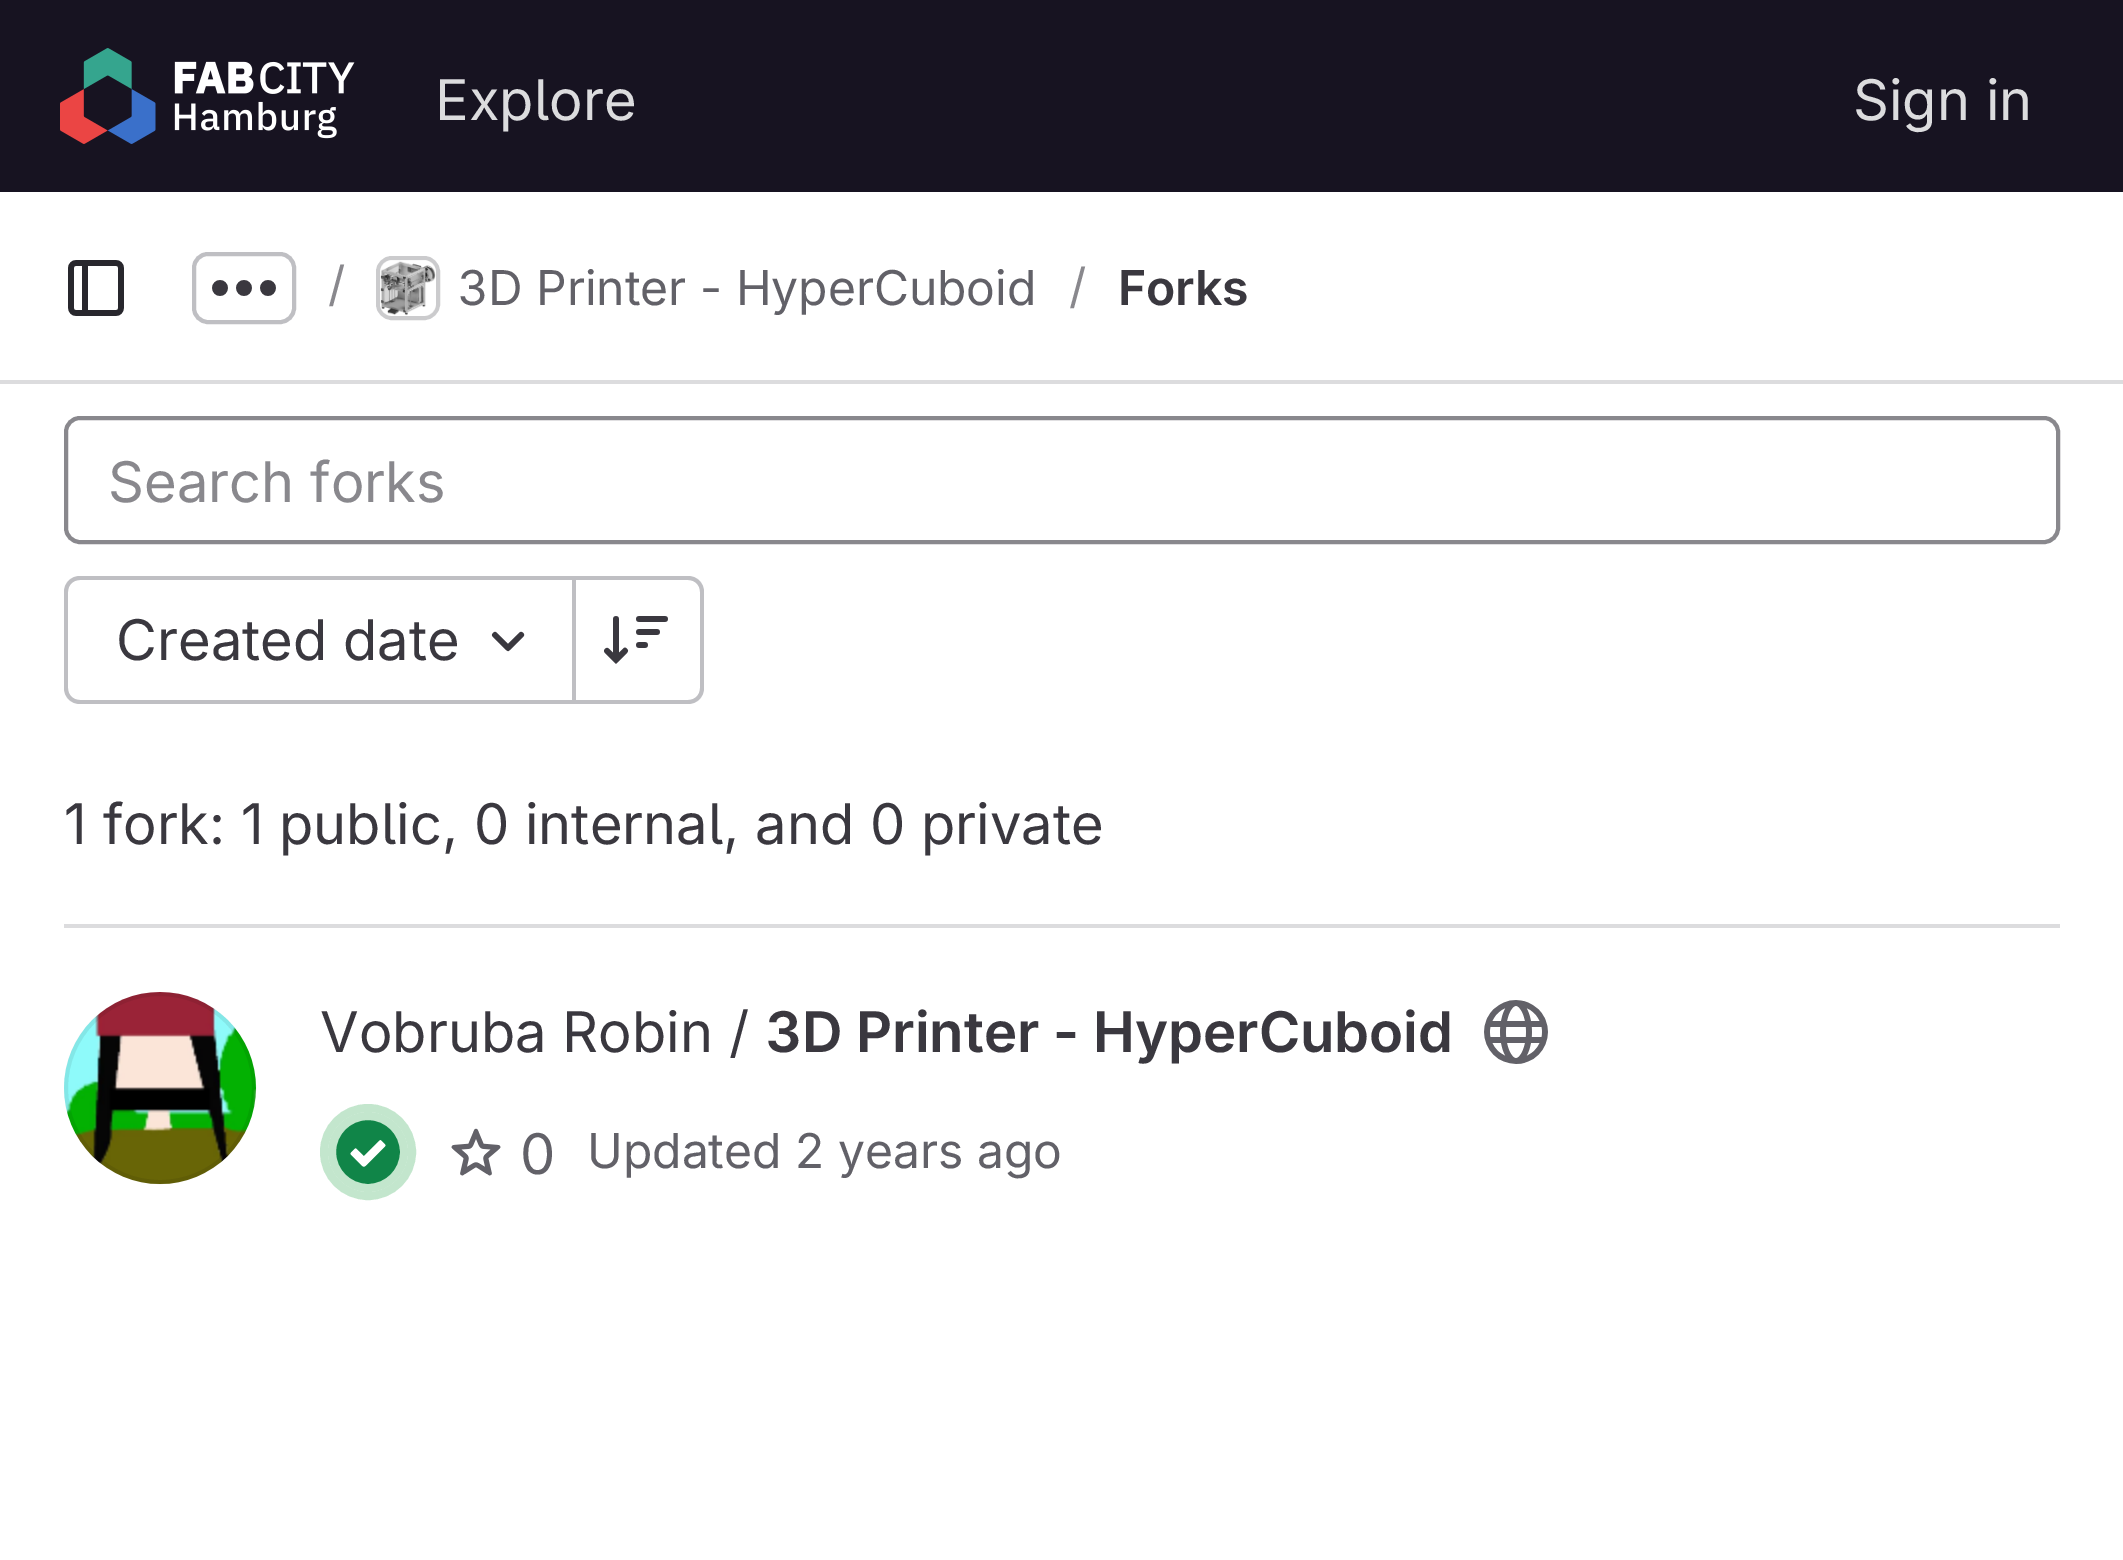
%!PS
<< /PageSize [2123 1560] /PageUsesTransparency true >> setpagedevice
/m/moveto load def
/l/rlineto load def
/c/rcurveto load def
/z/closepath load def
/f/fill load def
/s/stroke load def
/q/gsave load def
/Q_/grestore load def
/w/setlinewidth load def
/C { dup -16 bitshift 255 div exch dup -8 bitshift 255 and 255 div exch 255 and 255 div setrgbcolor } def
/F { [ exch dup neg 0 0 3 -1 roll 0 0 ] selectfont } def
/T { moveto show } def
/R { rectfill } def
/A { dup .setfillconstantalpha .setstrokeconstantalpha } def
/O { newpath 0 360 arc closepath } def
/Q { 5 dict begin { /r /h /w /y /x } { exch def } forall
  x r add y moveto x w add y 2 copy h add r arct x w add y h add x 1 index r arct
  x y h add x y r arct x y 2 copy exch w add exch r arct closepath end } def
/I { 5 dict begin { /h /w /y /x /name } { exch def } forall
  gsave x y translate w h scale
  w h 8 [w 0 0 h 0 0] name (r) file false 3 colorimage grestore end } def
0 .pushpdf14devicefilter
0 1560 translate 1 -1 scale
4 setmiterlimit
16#FFFFFF C
0 0 2123 1560 R
16#171321 C
0 0 2123 192 R
(1.rgb) 60 48 295 96 I
/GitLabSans-Regular 56 F
16#DCDCDE C
(Explore) 435 120 T
(Sign in) 1853 120 T
0 380 2123 4 R
(2.rgb) 68 260 56 56 I
16#BFBFC3 C
4 w
194 254 100 68 14 Q s
(3.rgb) 212 280 64 16 I
/GitLabSans-Regular 48 F
16#89888D C
(/) 328 301 T
16#DCDCDE C
378 258 60 60 14 Q s
(4.rgb) 380 260 56 56 I
0.08 A
16#050506 C
378 258 60 60 14 Q s
1 A
16#626168 C
(3D Printer - HyperCuboid) 457 305 T
16#89888D C
(/) 1069 303 T
/GitLabSans-SemiBold 48 F
16#3A383F C
(Forks) 1118 305 T
16#DCDCDE C
64 924 1996 4 R
16#89888D C
66 418 1992 124 14 Q s
/GitLabSans-Regular 56 F
(Search forks) 108 502 T
16#BFBFC3 C
80 576 m 492 0 l 0 128 l -492 0 l -9 0 -16 -7 -16 -16 c 0 -96 l 0 -9 7 -16 16 -16 c z 80 580 m 492 0 l 0 120 l -492 0 l -7 0 -12 -5 -12 -12 c 0 -96 l 0 -7 5 -12 12 -12 c z eofill
16#3A383F C
(Created date) 116 660 T
(5.rgb) 491 631 34 21 I
16#BFBFC3 C
576 576 m 112 0 l 9 0 16 7 16 16 c 0 96 l 0 9 -7 16 -16 16 c -112 0 l z 576 580 m 112 0 l 7 0 12 5 12 12 c 0 96 l 0 7 -5 12 -12 12 c -112 0 l z eofill
572 576 4 128 R
(6.rgb) 604 616 64 48 I
16#3A383F C
(1 fork: 1 public, 0 internal, and 0 private) 64 844 T
(7.rgb) 64 992 192 192 I
0.08 A
16#050506 C
160 1088 94 O s
1 A
16#3A383F C
(Vobruba Robin /) 320 1052 T
/GitLabSans-SemiBold 56 F
(3D Printer - HyperCuboid) 765 1052 T
(8.rgb) 1484 1000 64 64 I
16#C3E6CD C
8 w
368 1152 44 O s
16#108548 C
368 1152 36 O q f Q_
16#C3E6CD C
s
(9.rgb) 350 1140 36 27 I
(10.rgb) 451 1128 50 48 I
/GitLabSans-Regular 56 F
16#626168 C
(0) 520 1174 T
/GitLabSans-Regular 48 F
(Updated 2 years ago) 587 1168 T
.poppdf14devicefilter showpage
